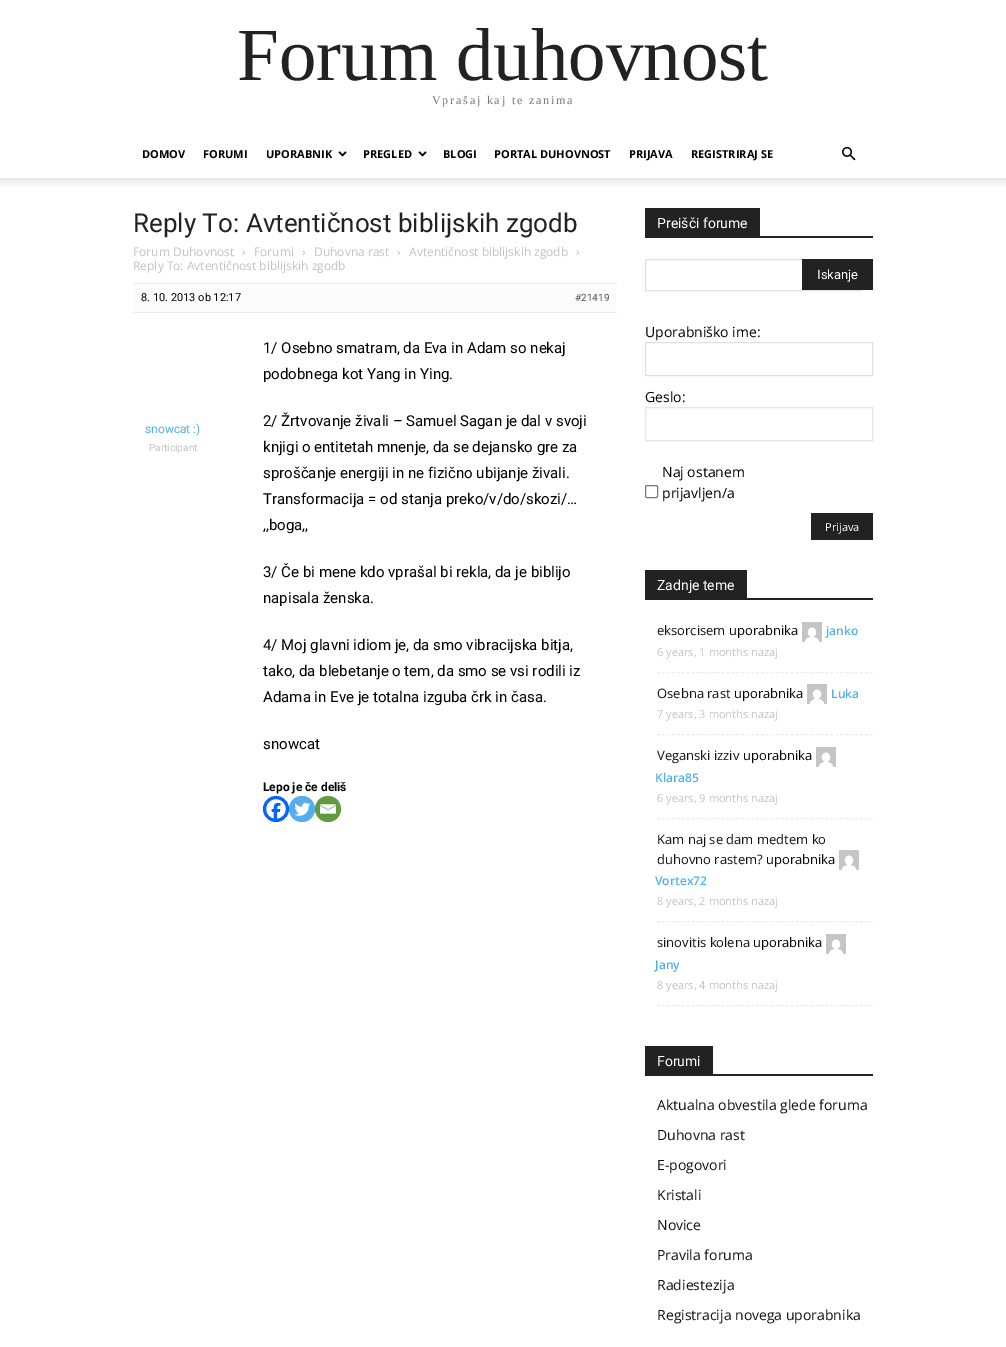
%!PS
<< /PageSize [1006 1347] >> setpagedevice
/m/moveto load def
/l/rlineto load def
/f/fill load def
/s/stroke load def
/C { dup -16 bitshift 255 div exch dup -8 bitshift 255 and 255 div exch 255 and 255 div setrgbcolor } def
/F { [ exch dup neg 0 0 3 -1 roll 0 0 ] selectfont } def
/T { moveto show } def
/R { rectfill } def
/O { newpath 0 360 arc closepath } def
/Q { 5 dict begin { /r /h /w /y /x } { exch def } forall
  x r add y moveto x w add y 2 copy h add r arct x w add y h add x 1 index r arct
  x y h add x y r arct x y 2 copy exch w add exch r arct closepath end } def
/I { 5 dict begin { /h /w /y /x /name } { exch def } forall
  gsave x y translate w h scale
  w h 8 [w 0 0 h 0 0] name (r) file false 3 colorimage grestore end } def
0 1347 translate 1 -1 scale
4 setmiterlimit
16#FFFFFF C
0 0 1006 1347 R
/LiberationSerif-Regular 75 F
16#222222 C
(Forum duhovnost) 237 80 T
/LiberationSerif-Regular 12 F
16#777777 C
432 104 m 1.8 0 (Vprašaj kaj te zanima) ashow
/OpenSans-Bold 11 F
16#000000 C
(DOMOV) 142 158 T
(FORUMI) 203 158 T
(UPORABNIK) 266 158 T
(1.rgb) 338 151 9 6 I
(PREGLED) 363 158 T
(1.rgb) 418 151 9 6 I
(BLOGI) 443 158 T
(PORTAL DUHOVNOST) 494 158 T
(PRIJAVA) 629 158 T
(REGISTRIRAJ SE) 691 158 T
(2.rgb) 842 146 14 15 I
(3.rgb) 0 178 1006 9 I
/Roboto-Regular 26 F
16#222222 C
(Reply To: Avtentičnost biblijskih zgodb) 133 232 T
/OpenSans-Regular 12 F
16#C3C3C3 C
(Forum Duhovnost) 133 256 T
(›) 242 256 T
(Forumi) 254 256 T
(›) 302 256 T
(Duhovna rast) 314 256 T
(›) 397 256 T
(Avtentičnost biblijskih zgodb) 409 256 T
(›) 576 256 T
(Reply To: Avtentičnost biblijskih zgodb) 133 270 T
16#FCFCFC C
133 284 484 28 R
16#EDEDED C
133 283 484 1 R
133 312 484 1 R
/Roboto-Regular 11 F
16#000000 C
(8. 10. 2013 ob 12:17) 141 301 T
/Roboto-Regular 10 F
16#555555 C
(#21419) 575 301 T
/Roboto-Regular 12 F
16#4DB2EC C
(snowcat :\)) 145 433 T
/Roboto-Regular 10 F
16#C3C3C3 C
(Participant) 149 451 T
/Roboto-Regular 15 F
16#000000 C
(1/ Osebno smatram, da Eva in Adam so nekaj) 263 353 T
(podobnega kot Yang in Ying.) 263 379 T
(2/ Žrtvovanje živali – Samuel Sagan je dal v svoji) 263 426 T
(knjigi o entitetah mnenje, da se dejansko gre za) 263 452 T
(sproščanje energiji in ne fizično ubijanje živali.) 263 478 T
(Transformacija = od stanja preko/v/do/skozi/…) 263 504 T
(,,boga,,) 263 530 T
(3/ Če bi mene kdo vprašal bi rekla, da je biblijo) 263 577 T
(napisala ženska.) 263 603 T
(4/ Moj glavni idiom je, da smo vibracijska bitja,) 263 650 T
(tako, da blebetanje o tem, da smo se vsi rodili iz) 263 676 T
(Adama in Eve je totalna izguba črk in časa.) 263 702 T
(snowcat) 263 749 T
/Roboto-Bold 12 F
(Lepo je če deliš) 263 791 T
16#0765FE C
276 809 13 O f
(4.rgb) 266 799 20 20 I
16#55ACEE C
302 809 13 O f
(5.rgb) 294 802 17 14 I
16#649A3F C
328 809 13 O f
(6.rgb) 320 804 16 10 I
16#222222 C
645 236 228 2 R
645 208 115 28 R
/Roboto-Regular 14 F
16#FFFFFF C
(Preišči forume) 657 228 T
16#E1E1E1 C
645.5 259.5 216 31 rectstroke
16#222222 C
802 259 71 31 R
/Roboto-Regular 13 F
16#FFFFFF C
(Iskanje) 817 279 T
/OpenSans-Regular 14 F
16#000000 C
(Uporabniško ime:) 645 337 T
16#E1E1E1 C
645.5 342.5 227 33 rectstroke
16#000000 C
(Geslo:) 645 402 T
16#E6E6E6 C
645.5 407.5 227 33 rectstroke
16#767676 C
645.5 485.5 12 12 1.5 Q s
16#000000 C
(Naj ostanem) 662 477 T
(prijavljen/a) 662 498 T
16#222222 C
811 513 62 27 R
/OpenSans-Regular 11 F
16#FFFFFF C
(Prijava) 825 531 T
16#222222 C
645 598 228 2 R
645 570 102 28 R
/Roboto-Regular 14 F
16#FFFFFF C
(Zadnje teme) 657 590 T
16#EDEDED C
[3 1.95] 0 setdash
657 672.5 m 216 0 l s
/OpenSans-Regular 13 F
16#111111 C
(eksorcisem) 657 635 T
16#000000 C
(uporabnika) 729 635 T
(7.rgb) 802 622 20 20 I
/OpenSans-SemiBold 12 F
16#4DB2EC C
(janko) 826 635 T
/OpenSans-Regular 11 F
16#C3C3C3 C
(6 years, 1 months nazaj) 657 656 T
16#EDEDED C
657 734.5 m 216 0 l s
/OpenSans-Regular 13 F
16#111111 C
(Osebna rast) 657 698 T
16#000000 C
(uporabnika) 734 698 T
(7.rgb) 807 684 20 20 I
/OpenSans-SemiBold 12 F
16#4DB2EC C
(Luka) 831 698 T
/OpenSans-Regular 11 F
16#C3C3C3 C
(7 years, 3 months nazaj) 657 718 T
16#EDEDED C
657 818.5 m 216 0 l s
/OpenSans-Regular 13 F
16#111111 C
(Veganski izziv) 657 760 T
16#000000 C
(uporabnika) 743 760 T
(7.rgb) 816 747 20 20 I
/OpenSans-SemiBold 12 F
16#4DB2EC C
(Klara85) 655 782 T
/OpenSans-Regular 11 F
16#C3C3C3 C
(6 years, 9 months nazaj) 657 802 T
16#EDEDED C
657 921.5 m 216 0 l s
/OpenSans-Regular 13 F
16#111111 C
(Kam naj se dam medtem ko) 657 844 T
(duhovno rastem?) 657 864 T
16#000000 C
(uporabnika) 766 864 T
(7.rgb) 839 850 20 20 I
/OpenSans-SemiBold 12 F
16#4DB2EC C
(Vortex72) 655 885 T
/OpenSans-Regular 11 F
16#C3C3C3 C
(8 years, 2 months nazaj) 657 905 T
16#EDEDED C
657 1005.5 m 216 0 l s
/OpenSans-Regular 13 F
16#111111 C
(sinovitis kolena) 657 947 T
16#000000 C
(uporabnika) 753 947 T
(7.rgb) 826 934 20 20 I
/OpenSans-SemiBold 12 F
16#4DB2EC C
(Jany) 655 969 T
/OpenSans-Regular 11 F
16#C3C3C3 C
(8 years, 4 months nazaj) 657 989 T
16#222222 C
645 1074 228 2 R
645 1046 68 28 R
/Roboto-Regular 14 F
16#FFFFFF C
(Forumi) 657 1066 T
/OpenSans-Regular 14 F
16#111111 C
(Aktualna obvestila glede foruma) 657 1110 T
(Duhovna rast) 657 1140 T
(E-pogovori) 657 1170 T
(Kristali) 657 1200 T
(Novice) 657 1230 T
(Pravila foruma) 657 1260 T
(Radiestezija) 657 1290 T
(Registracija novega uporabnika) 657 1320 T
showpage
